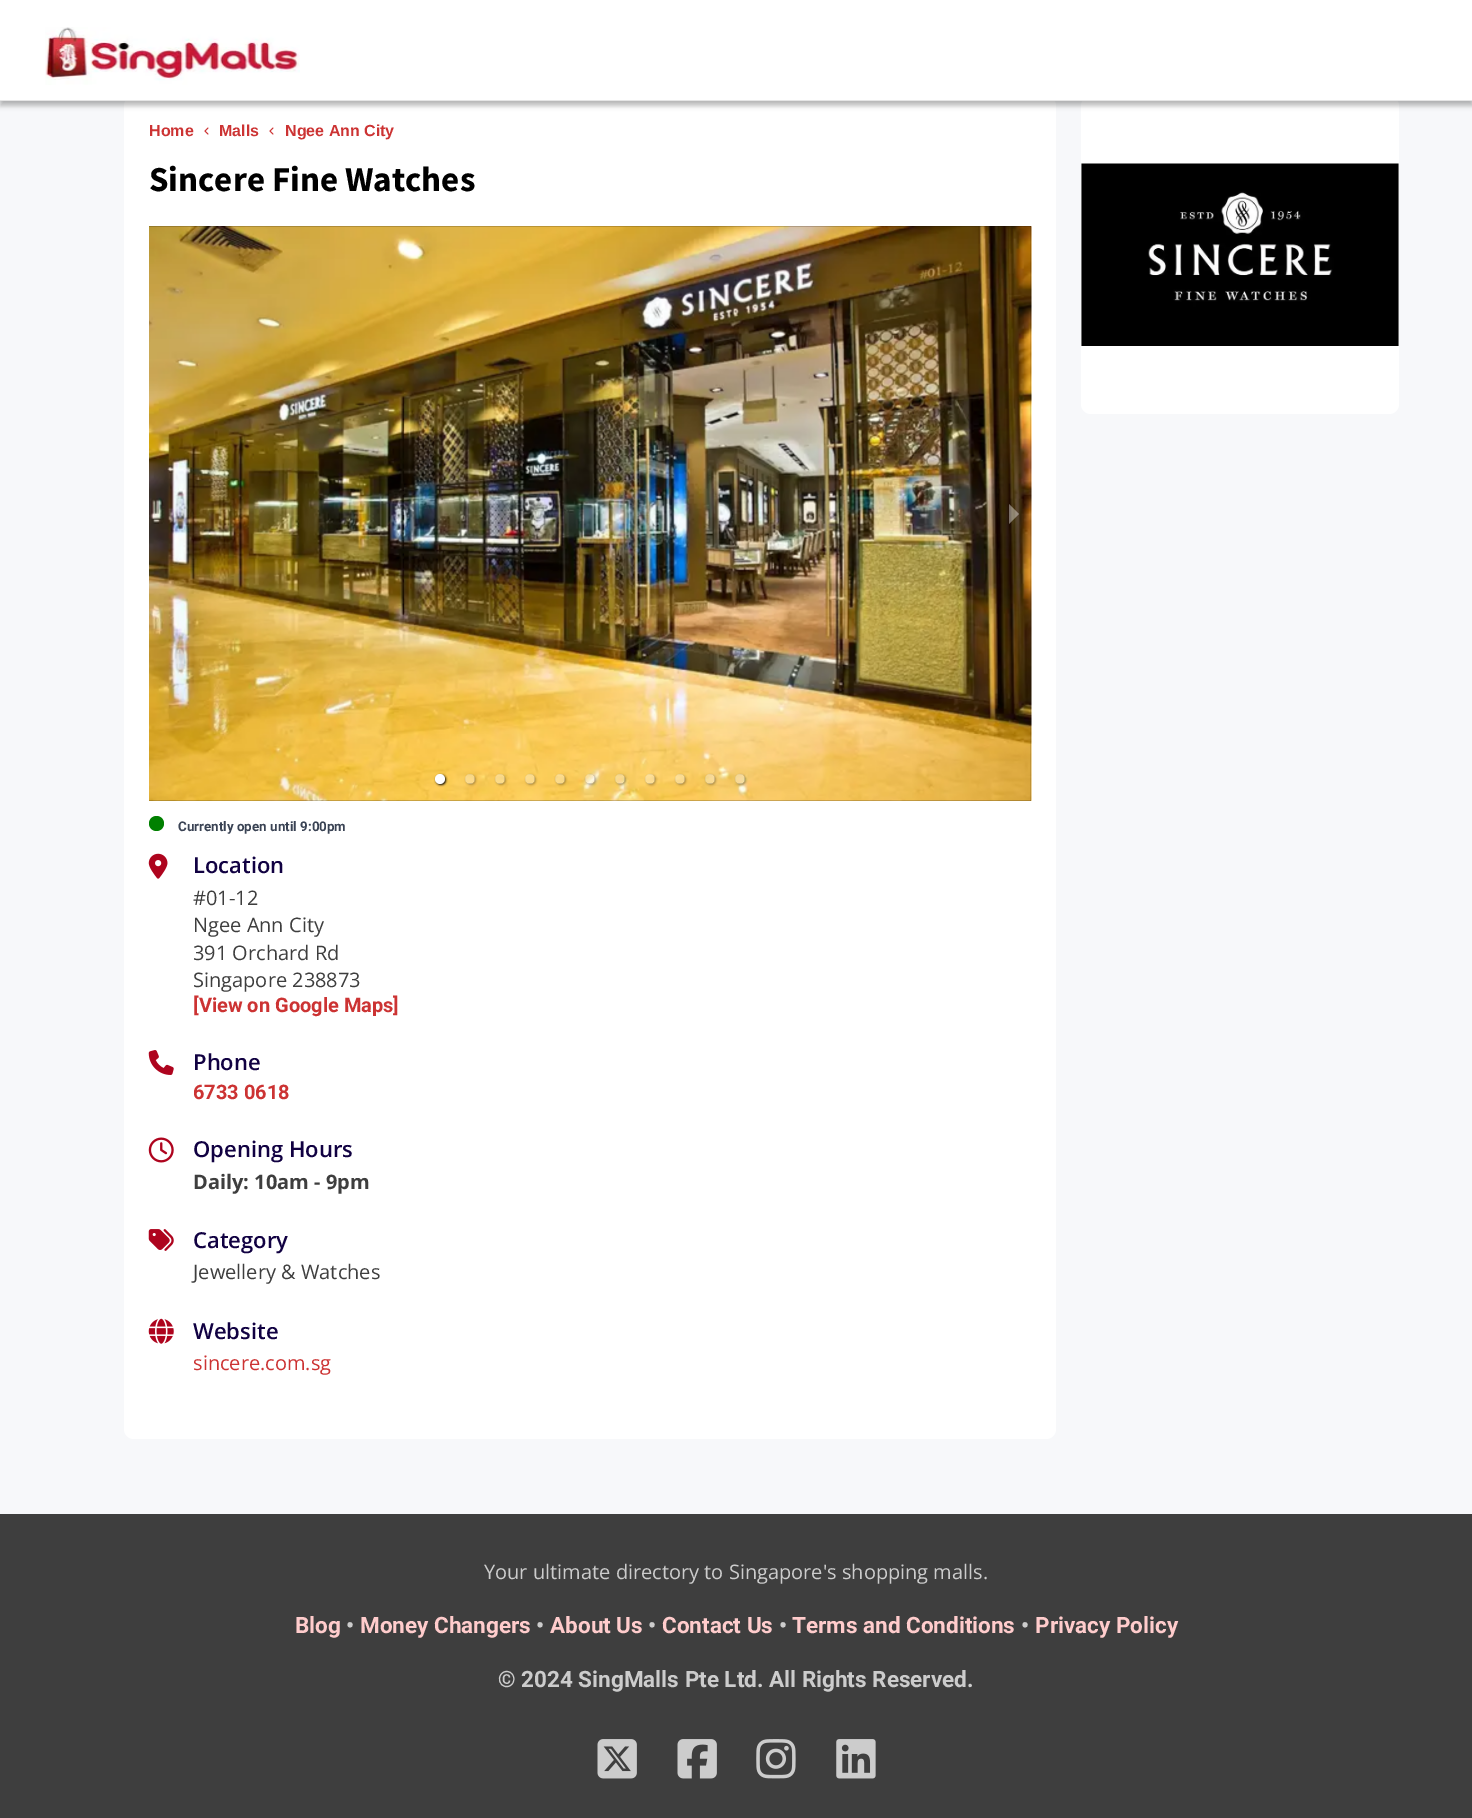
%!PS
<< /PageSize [1472 1818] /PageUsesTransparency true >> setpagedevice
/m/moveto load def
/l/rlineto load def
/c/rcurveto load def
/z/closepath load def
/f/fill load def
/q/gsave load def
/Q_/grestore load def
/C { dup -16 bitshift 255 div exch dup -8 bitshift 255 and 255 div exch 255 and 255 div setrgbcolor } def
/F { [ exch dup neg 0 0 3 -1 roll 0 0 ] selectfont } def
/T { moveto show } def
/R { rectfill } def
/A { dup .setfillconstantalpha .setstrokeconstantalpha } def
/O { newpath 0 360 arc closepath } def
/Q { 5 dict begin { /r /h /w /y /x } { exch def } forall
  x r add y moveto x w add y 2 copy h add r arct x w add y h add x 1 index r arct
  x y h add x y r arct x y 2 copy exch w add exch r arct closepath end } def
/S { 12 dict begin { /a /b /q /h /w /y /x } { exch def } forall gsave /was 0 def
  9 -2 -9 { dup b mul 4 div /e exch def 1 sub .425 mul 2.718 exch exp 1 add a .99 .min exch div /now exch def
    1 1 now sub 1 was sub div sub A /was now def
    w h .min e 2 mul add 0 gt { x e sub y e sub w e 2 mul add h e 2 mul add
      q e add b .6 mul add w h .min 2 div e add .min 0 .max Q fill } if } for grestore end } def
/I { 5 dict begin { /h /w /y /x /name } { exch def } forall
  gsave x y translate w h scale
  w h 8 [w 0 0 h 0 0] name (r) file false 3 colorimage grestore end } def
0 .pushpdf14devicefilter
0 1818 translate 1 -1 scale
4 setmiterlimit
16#F7F8FA C
0 0 1472 1818 R
16#FFFFFF C
124 96 932 1343 10 Q f
1081 96 318 318 10 Q f
16#000000 C
0 5 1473 101 0 2.5 .24 S
0 0 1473 101 0 2.5 .12 S
16#FFFFFF C
0 0 1472 100 R
16#E5E5E5 C
0 100 1472 1 R
(1.rgb) 45 27 255 58 I
/LiberationSans-Bold 16 F
16#CC3333 C
(Home) 149 136 T
(2.rgb) 204 127 5 8 I
(Malls) 219 136 T
(2.rgb) 269 127 5 8 I
(Ngee Ann City) 285 136 T
/SourceSansPro-Bold 35 F
16#000000 C
(Sincere Fine Watches) 149 191 T
(3.rgb) 149 226 883 575 I
0.4 A
16#FFFFFF C
1009 524 m 0 -20 l 10 10 l z f
1 A
16#000000 C
436 775 10 10 5 1 .9 S
16#FFFFFF C
440 779 5 O f
q
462 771 m 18 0 l 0 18 l -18 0 l z 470 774 m 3 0 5 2 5 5 c 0 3 -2 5 -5 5 c -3 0 -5 -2 -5 -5 c 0 -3 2 -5 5 -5 c z eoclip newpath
16#000000 C
466 775 10 10 5 1 .27 S
Q_
0.3 A
470 779 5 O f
q
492 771 m 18 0 l 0 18 l -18 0 l z 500 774 m 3 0 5 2 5 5 c 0 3 -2 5 -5 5 c -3 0 -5 -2 -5 -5 c 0 -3 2 -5 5 -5 c z eoclip newpath
1 A
16#000000 C
496 775 10 10 5 1 .27 S
Q_
500 779 5 O f
q
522 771 m 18 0 l 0 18 l -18 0 l z 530 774 m 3 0 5 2 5 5 c 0 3 -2 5 -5 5 c -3 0 -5 -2 -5 -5 c 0 -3 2 -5 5 -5 c z eoclip newpath
1 A
16#000000 C
526 775 10 10 5 1 .27 S
Q_
530 779 5 O f
q
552 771 m 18 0 l 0 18 l -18 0 l z 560 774 m 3 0 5 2 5 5 c 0 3 -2 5 -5 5 c -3 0 -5 -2 -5 -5 c 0 -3 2 -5 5 -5 c z eoclip newpath
1 A
16#000000 C
556 775 10 10 5 1 .27 S
Q_
560 779 5 O f
q
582 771 m 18 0 l 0 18 l -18 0 l z 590 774 m 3 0 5 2 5 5 c 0 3 -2 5 -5 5 c -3 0 -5 -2 -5 -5 c 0 -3 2 -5 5 -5 c z eoclip newpath
1 A
16#000000 C
586 775 10 10 5 1 .27 S
Q_
590 779 5 O f
q
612 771 m 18 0 l 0 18 l -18 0 l z 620 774 m 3 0 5 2 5 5 c 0 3 -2 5 -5 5 c -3 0 -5 -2 -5 -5 c 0 -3 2 -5 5 -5 c z eoclip newpath
1 A
16#000000 C
616 775 10 10 5 1 .27 S
Q_
620 779 5 O f
q
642 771 m 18 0 l 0 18 l -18 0 l z 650 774 m 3 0 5 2 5 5 c 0 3 -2 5 -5 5 c -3 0 -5 -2 -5 -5 c 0 -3 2 -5 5 -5 c z eoclip newpath
1 A
16#000000 C
646 775 10 10 5 1 .27 S
Q_
650 779 5 O f
q
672 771 m 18 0 l 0 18 l -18 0 l z 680 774 m 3 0 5 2 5 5 c 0 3 -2 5 -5 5 c -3 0 -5 -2 -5 -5 c 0 -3 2 -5 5 -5 c z eoclip newpath
1 A
16#000000 C
676 775 10 10 5 1 .27 S
Q_
680 779 5 O f
q
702 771 m 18 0 l 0 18 l -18 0 l z 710 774 m 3 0 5 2 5 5 c 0 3 -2 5 -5 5 c -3 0 -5 -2 -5 -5 c 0 -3 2 -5 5 -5 c z eoclip newpath
1 A
16#000000 C
706 775 10 10 5 1 .27 S
Q_
710 779 5 O f
q
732 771 m 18 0 l 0 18 l -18 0 l z 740 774 m 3 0 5 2 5 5 c 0 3 -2 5 -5 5 c -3 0 -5 -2 -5 -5 c 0 -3 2 -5 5 -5 c z eoclip newpath
1 A
16#000000 C
736 775 10 10 5 1 .27 S
Q_
740 779 5 O f
1 A
16#008000 C
156.5 823.5 7.5 O f
/Roboto-Bold 13.4 F
16#3A4354 C
(Currently open until 9:00pm) 178 831 T
(4.rgb) 148 853 20 26 I
/OpenSans-SemiBold 22 F
16#110142 C
(Location) 193 873 T
/OpenSans-Regular 20 F
16#3E3E3E C
(#01-12) 193 905 T
(Ngee Ann City) 193 932 T
(391 Orchard Rd) 193 960 T
(Singapore 238873) 193 987 T
/Roboto-Bold 20 F
16#CC3333 C
([View on Google Maps]) 193 1012 T
(5.rgb) 148 1050 26 25 I
/OpenSans-SemiBold 22 F
16#110142 C
(Phone) 193 1070 T
/Roboto-Bold 20 F
16#CC3333 C
(6733 0618) 193 1099 T
(6.rgb) 148 1137 26 26 I
/OpenSans-SemiBold 22 F
16#110142 C
(Opening Hours) 193 1157 T
/OpenSans-Bold 20 F
16#3E3E3E C
(Daily: 10am - 9pm) 193 1189 T
(7.rgb) 148 1229 26 22 I
/OpenSans-SemiBold 22 F
16#110142 C
(Category) 193 1248 T
/OpenSans-Regular 20 F
16#3E3E3E C
(Jewellery & Watches) 193 1279 T
(8.rgb) 148 1318 26 26 I
/OpenSans-SemiBold 22 F
16#110142 C
(Website) 193 1339 T
/OpenSans-Regular 20 F
16#CC3333 C
(sincere.com.sg) 193 1370 T
(9.rgb) 1081 163 318 183 I
16#3E3E3E C
0 1514 1472 304 R
16#CCCCCC C
(Your ultimate directory to Singapore's shopping malls.) 484 1579 T
/Roboto-Bold 22.5 F
16#FFCCCC C
(Blog) 295 1633 T
16#CCCCCC C
(•) 346 1633 T
16#FFCCCC C
(Money Changers) 360 1633 T
16#CCCCCC C
(•) 536 1633 T
16#FFCCCC C
(About Us) 550 1633 T
16#CCCCCC C
(•) 648 1633 T
16#FFCCCC C
(Contact Us) 662 1633 T
16#CCCCCC C
(•) 779 1633 T
16#FFCCCC C
(Terms and Conditions) 792 1633 T
16#CCCCCC C
(•) 1021 1633 T
16#FFCCCC C
(Privacy Policy) 1035 1633 T
16#CCCCCC C
(© 2024 SingMalls Pte Ltd. All Rights Reserved.) 498 1687 T
(10.rgb) 597 1739 40 40 I
(11.rgb) 677 1739 40 40 I
(12.rgb) 756 1739 40 40 I
(13.rgb) 836 1739 40 40 I
.poppdf14devicefilter showpage
